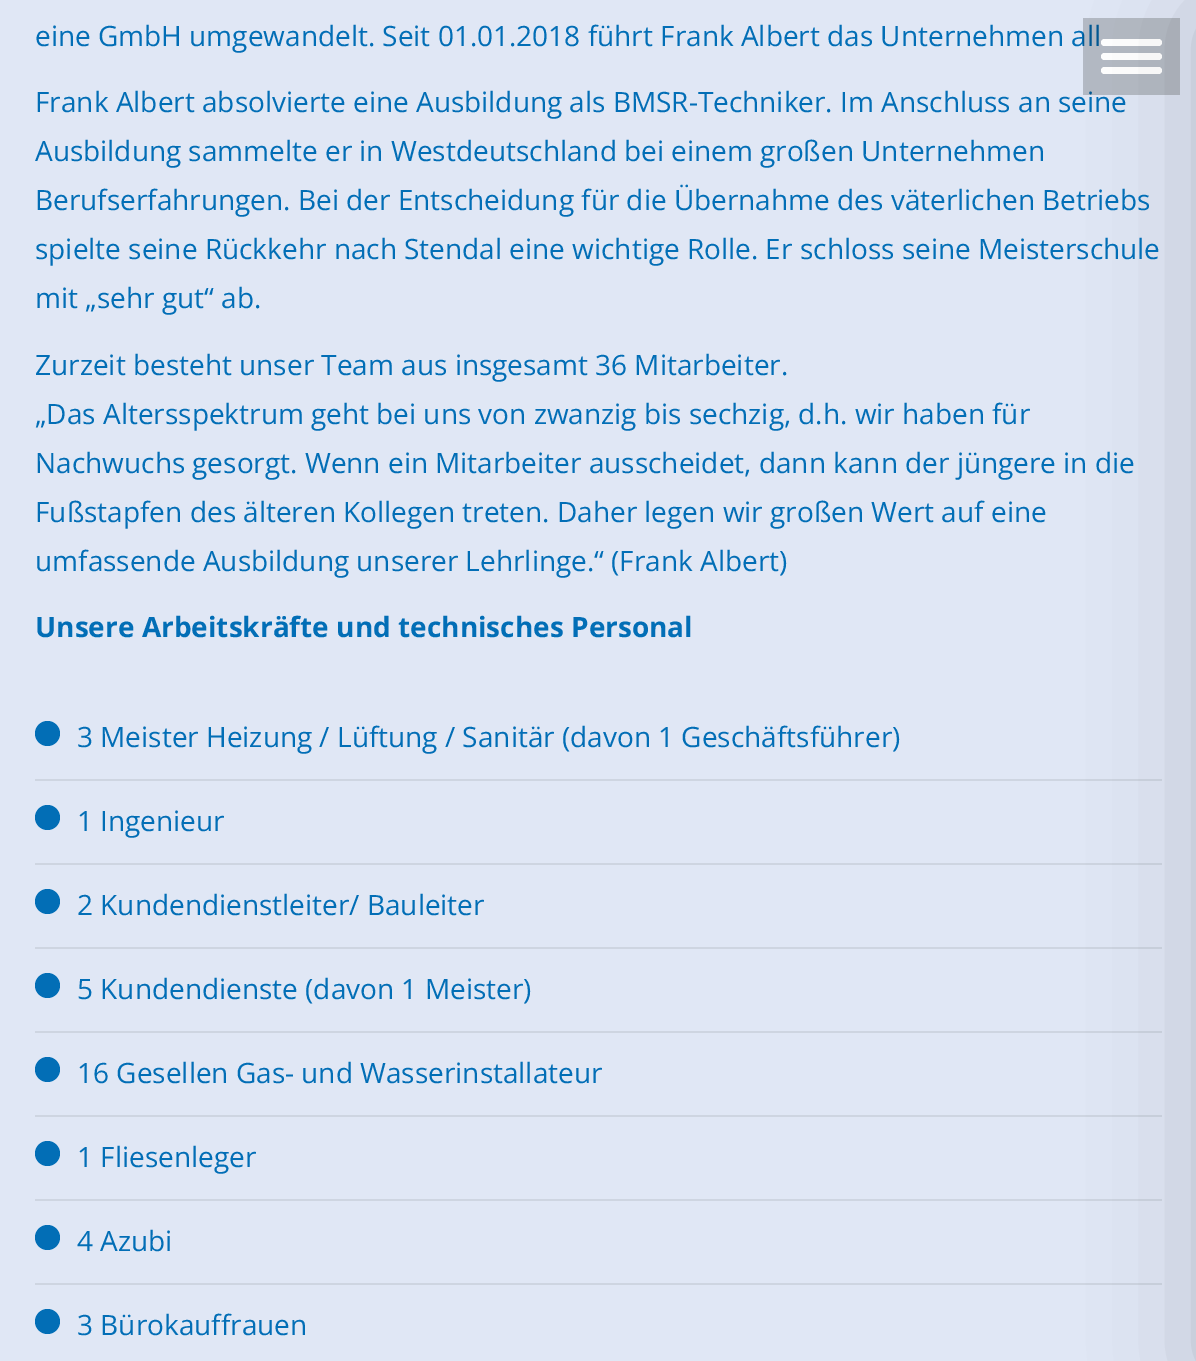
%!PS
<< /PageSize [1196 1361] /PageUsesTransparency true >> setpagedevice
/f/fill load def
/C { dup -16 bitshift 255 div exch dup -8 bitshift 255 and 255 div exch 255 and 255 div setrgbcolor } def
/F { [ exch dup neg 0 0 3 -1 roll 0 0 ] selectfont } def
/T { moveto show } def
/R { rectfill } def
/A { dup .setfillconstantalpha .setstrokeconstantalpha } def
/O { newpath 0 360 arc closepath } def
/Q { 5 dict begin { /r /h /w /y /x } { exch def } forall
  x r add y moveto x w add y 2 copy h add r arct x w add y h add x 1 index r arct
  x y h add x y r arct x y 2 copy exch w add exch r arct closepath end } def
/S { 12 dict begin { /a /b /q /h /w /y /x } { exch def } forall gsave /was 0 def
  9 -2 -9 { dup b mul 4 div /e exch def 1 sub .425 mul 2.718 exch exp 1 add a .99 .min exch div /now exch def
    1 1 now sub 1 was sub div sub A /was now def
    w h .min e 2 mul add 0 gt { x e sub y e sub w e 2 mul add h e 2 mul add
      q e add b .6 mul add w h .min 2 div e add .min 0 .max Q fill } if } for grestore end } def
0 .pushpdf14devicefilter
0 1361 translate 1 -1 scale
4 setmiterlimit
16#E0E7F5 C
0 0 1196 1361 R
/OpenSans-Regular 28 F
16#026EB6 C
(eine GmbH umgewandelt. Seit 01.01.2018 führt Frank Albert das Unternehmen all) 35 46 T
(Frank Albert absolvierte eine Ausbildung als BMSR-Techniker. Im Anschluss an seine) 35 112 T
0.2 A
16#000000 C
1083 18 97 77 R
1 A
16#FFFFFF C
1101 39 61 7 3.5 Q f
1101 53 61 7 3.5 Q f
1101 67 61 7 3.5 Q f
16#CED5E1 C
35 779 1127 2 R
35 863 1127 2 R
35 947 1127 2 R
35 1031 1127 2 R
35 1115 1127 2 R
35 1199 1127 2 R
35 1283 1127 2 R
16#000000 C
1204 18 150 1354 0 52.5 .2 S
16#026EB6 C
(Ausbildung sammelte er in Westdeutschland bei einem großen Unternehmen) 35 161 T
(Berufserfahrungen. Bei der Entscheidung für die Übernahme des väterlichen Betriebs) 35 210 T
(spielte seine Rückkehr nach Stendal eine wichtige Rolle. Er schloss seine Meisterschule) 35 259 T
(mit „sehr gut“ ab.) 35 308 T
(Zurzeit besteht unser Team aus insgesamt 36 Mitarbeiter.) 35 375 T
(„Das Altersspektrum geht bei uns von zwanzig bis sechzig, d.h. wir haben für) 35 424 T
(Nachwuchs gesorgt. Wenn ein Mitarbeiter ausscheidet, dann kann der jüngere in die) 35 473 T
(Fußstapfen des älteren Kollegen treten. Daher legen wir großen Wert auf eine) 35 522 T
(umfassende Ausbildung unserer Lehrlinge.“ \(Frank Albert\)) 35 571 T
/OpenSans-Bold 28 F
(Unsere Arbeitskräfte und technisches Personal) 35 637 T
47.5 733.5 12.5 O f
/OpenSans-Regular 28 F
(3 Meister Heizung / Lüftung / Sanitär \(davon 1 Geschäftsführer\)) 77 747 T
47.5 817.5 12.5 O f
(1 Ingenieur) 77 831 T
47.5 901.5 12.5 O f
(2 Kundendienstleiter/ Bauleiter) 77 915 T
47.5 985.5 12.5 O f
(5 Kundendienste \(davon 1 Meister\)) 77 999 T
47.5 1069.5 12.5 O f
(16 Gesellen Gas- und Wasserinstallateur) 77 1083 T
47.5 1153.5 12.5 O f
(1 Fliesenleger) 77 1167 T
47.5 1237.5 12.5 O f
(4 Azubi) 77 1251 T
47.5 1321.5 12.5 O f
(3 Bürokauffrauen) 77 1335 T
.poppdf14devicefilter showpage
